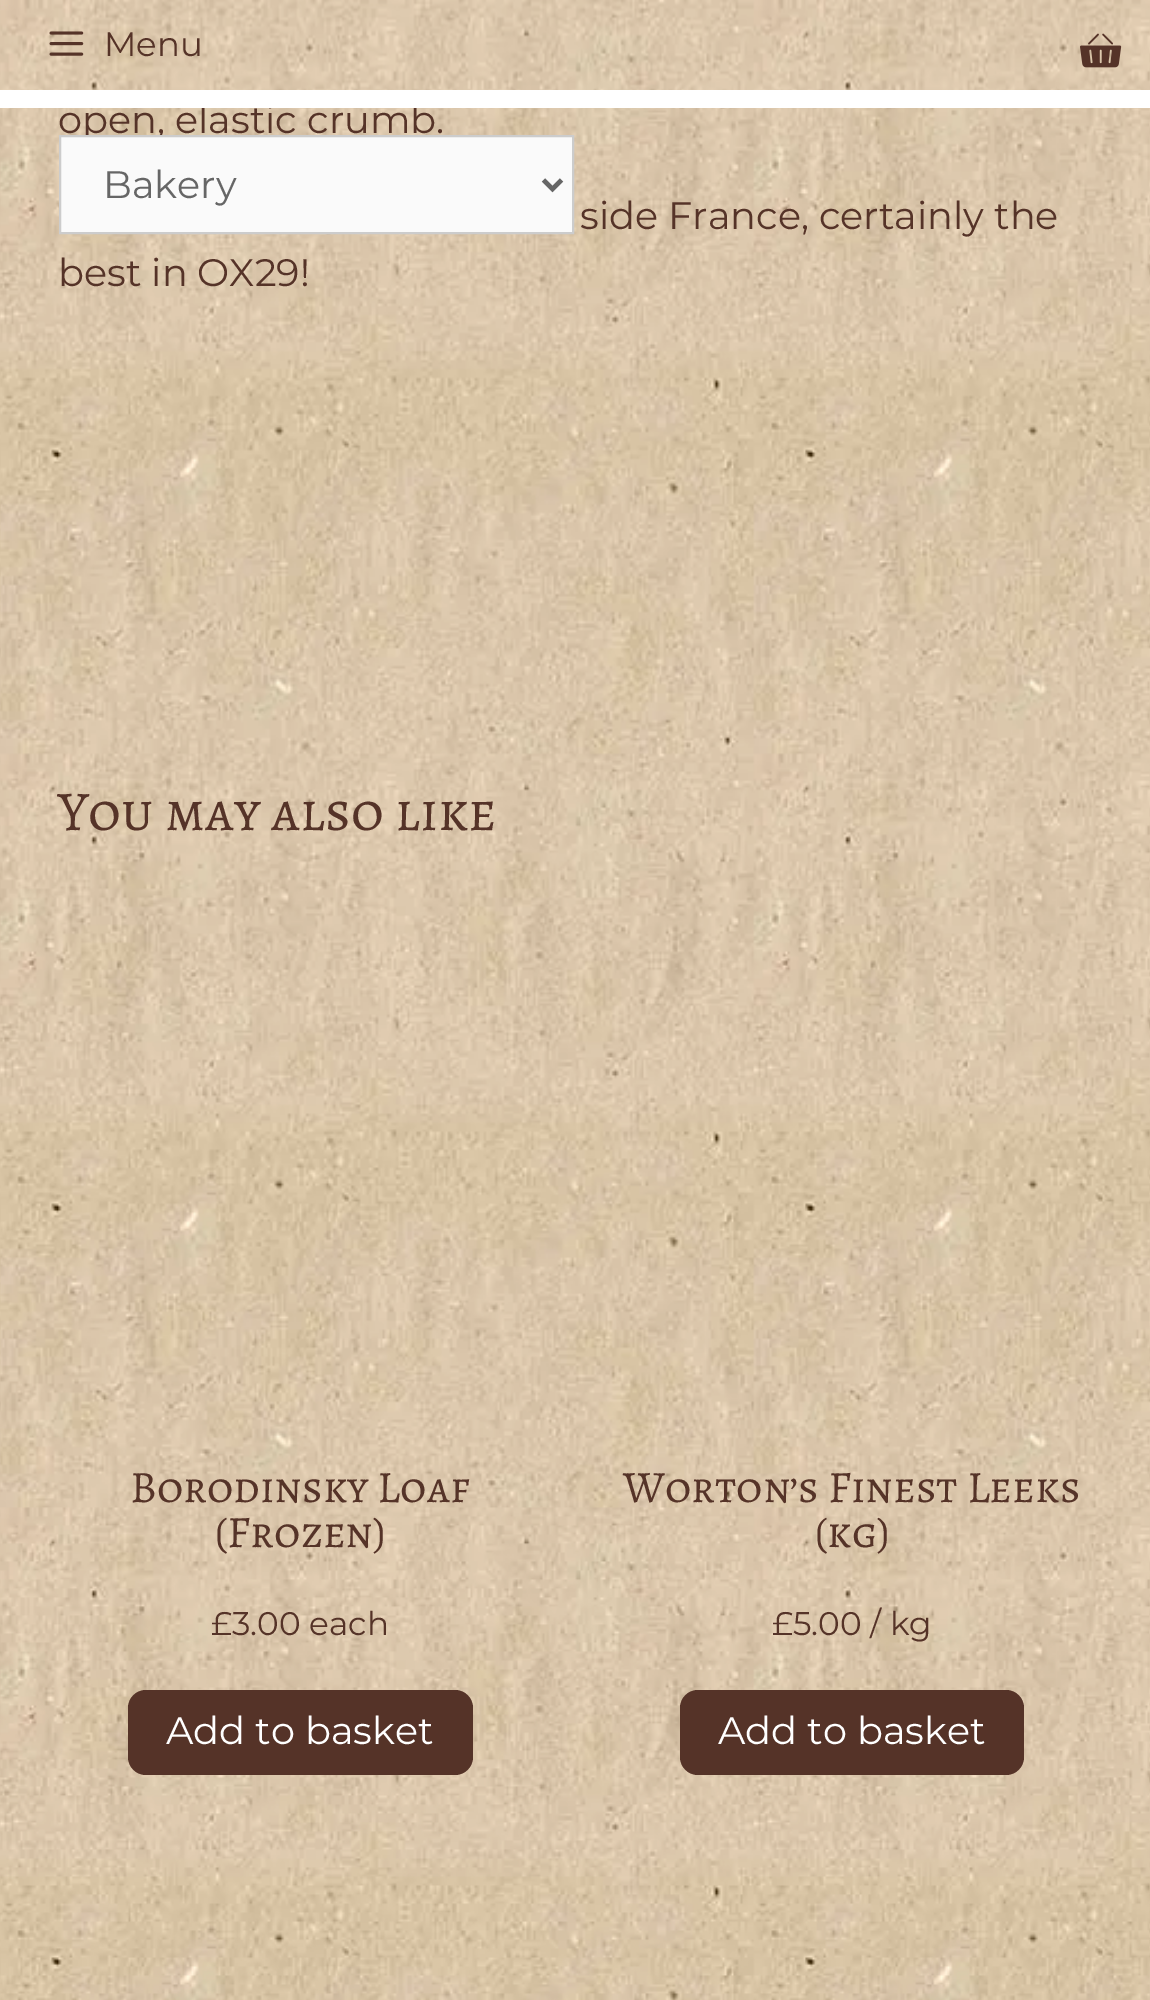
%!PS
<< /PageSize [1150 2000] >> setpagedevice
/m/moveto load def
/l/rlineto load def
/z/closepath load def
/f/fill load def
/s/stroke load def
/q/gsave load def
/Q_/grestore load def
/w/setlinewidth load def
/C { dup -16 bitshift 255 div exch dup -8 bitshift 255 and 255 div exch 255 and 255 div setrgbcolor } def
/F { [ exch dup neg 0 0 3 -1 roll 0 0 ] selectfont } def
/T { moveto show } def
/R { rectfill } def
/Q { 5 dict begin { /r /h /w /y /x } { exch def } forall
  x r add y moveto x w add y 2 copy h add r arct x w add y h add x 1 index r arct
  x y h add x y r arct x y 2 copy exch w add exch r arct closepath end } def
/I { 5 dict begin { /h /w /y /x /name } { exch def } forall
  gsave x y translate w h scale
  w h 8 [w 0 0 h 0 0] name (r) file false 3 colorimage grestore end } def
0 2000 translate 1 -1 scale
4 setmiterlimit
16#FFFFFF C
0 0 1150 2000 R
(1.rgb) 0 108 1150 1892 I
(2.rgb) 0 0 1150 90 I
/Montserrat-Regular 38.25 F
16#553328 C
(open, elastic crumb.) 58 133 T
16#FFFFFF C
201 104 216 4 R
(3.rgb) 49 31 35 25 I
/Montserrat-Regular 34 F
16#553328 C
(Menu) 104 56 T
(4.rgb) 1080 33 42 35 I
/Montserrat-Regular 38.25 F
(side France, certainly the) 580 229 T
(best in OX29!) 58 286 T
/AlegreyaSC-Regular 56.25 F
(You may also like) 58 830 T
/AlegreyaSC-Regular 45 F
(Borodinsky Loaf) 130 1502 T
(\(Frozen\)) 215 1547 T
/Montserrat-Regular 32.75 F
(£3.00 each) 211 1635 T
128 1690 345 85 18 Q f
/Montserrat-Regular 38.25 F
16#FFFFFF C
(Add to basket) 166 1744 T
/AlegreyaSC-Regular 45 F
16#553328 C
(Worton’s Finest Leeks) 623 1502 T
(\(kg\)) 815 1547 T
/Montserrat-Regular 32.75 F
(£5.00 / kg) 772 1635 T
680 1690 344 85 18 Q f
/Montserrat-Regular 38.25 F
16#FFFFFF C
(Add to basket) 718 1744 T
16#FAFAFA C
60 136 m 513 0 l 0 97 l -513 0 l z q f Q_
16#CCCCCC C
2 w
s
16#666666 C
4.5 w
543.5 180 m 9 9 l 9 -9 l s
(Bakery) 103 198 T
showpage
